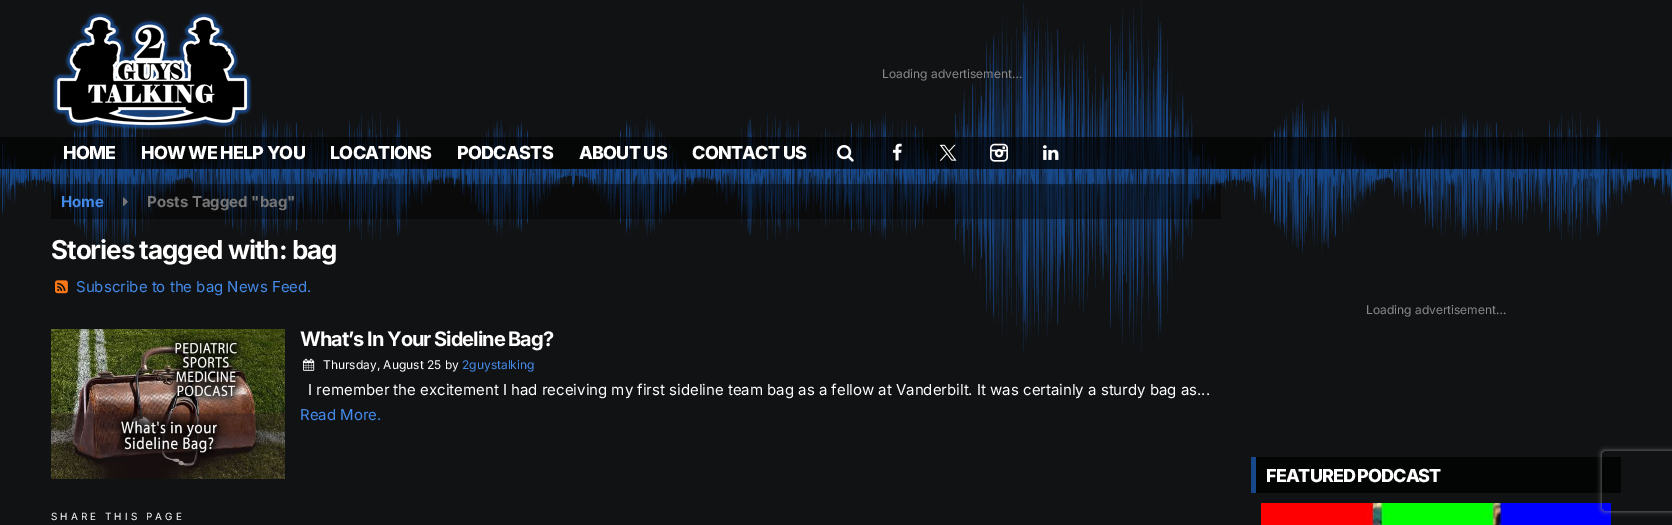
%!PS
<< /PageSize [1672 525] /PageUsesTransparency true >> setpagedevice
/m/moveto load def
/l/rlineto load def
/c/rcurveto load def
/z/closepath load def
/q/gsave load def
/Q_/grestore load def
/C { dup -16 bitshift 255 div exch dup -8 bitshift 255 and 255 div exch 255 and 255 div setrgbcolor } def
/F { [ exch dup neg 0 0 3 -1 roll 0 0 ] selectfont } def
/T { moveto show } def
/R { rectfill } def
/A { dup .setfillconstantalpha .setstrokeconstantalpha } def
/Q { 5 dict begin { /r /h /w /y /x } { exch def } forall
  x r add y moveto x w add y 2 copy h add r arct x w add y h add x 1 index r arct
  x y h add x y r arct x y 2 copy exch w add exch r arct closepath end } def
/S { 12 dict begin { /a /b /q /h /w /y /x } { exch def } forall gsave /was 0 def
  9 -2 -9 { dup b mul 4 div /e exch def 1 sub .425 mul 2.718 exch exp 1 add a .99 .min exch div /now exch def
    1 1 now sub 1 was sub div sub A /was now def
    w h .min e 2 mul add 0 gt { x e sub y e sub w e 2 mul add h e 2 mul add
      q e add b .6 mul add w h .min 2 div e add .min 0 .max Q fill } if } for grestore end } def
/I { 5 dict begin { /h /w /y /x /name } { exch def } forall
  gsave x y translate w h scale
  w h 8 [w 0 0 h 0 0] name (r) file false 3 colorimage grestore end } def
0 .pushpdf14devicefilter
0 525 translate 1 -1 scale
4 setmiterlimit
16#111214 C
0 0 1672 525 R
(1.rgb) 0 1 1672 168 I
(2.rgb) 52 12 200 118 I
/Inter-Regular 12 F
16#888888 C
(Loading advertisement…) 882 78 T
0.69 A
16#000000 C
0 137 1672 32 R
/Inter-ExtraBold 18 F
1 A
16#FFFFFF C
63 159 m -.75 0 (HOME) ashow
141 159 m -.75 0 (HOW WE HELP YOU) ashow
330 159 m -.75 0 (LOCATIONS) ashow
457 159 m -.75 0 (PODCASTS) ashow
579 159 m -.75 0 (ABOUT US) ashow
692 159 m -.75 0 (CONTACT US) ashow
(3.rgb) 837 145 17 17 I
(4.rgb) 892 143 10 18 I
(5.rgb) 939 144 18 17 I
(6.rgb) 990 143 18 19 I
(7.rgb) 1043 145 16 15 I
(8.rgb) 0 169 1672 184 I
0.44 A
16#000000 C
51 184 1170 35 R
/Inter-Bold 15 F
1 A
16#448AE9 C
(Home) 61 207 T
(9.rgb) 123 197 5 9 I
16#777777 C
(Posts Tagged "bag") 147 207 T
/Inter-Bold 26 F
16#FFFFFF C
51 259 m -1 0 (Stories tagged with: bag) ashow
(10.rgb) 55 280 13 14 I
/Inter-Regular 15 F
16#448AE9 C
(Subscribe to the bag News Feed.) 76 292 T
(11.rgb) 51 329 234 150 I
/Inter-Bold 20 F
16#FFFFFF C
300 346 m -1 0 (What’s In Your Sideline Bag?) ashow
(12.rgb) 303 358 12 13 I
/Inter-Regular 12 F
(Thursday, August 25 by) 323 369 T
16#448AE9 C
(2guystalking) 462 369 T
/Inter-Regular 15 F
16#FFFFFF C
(I remember the excitement I had receiving my first sideline team bag as a fellow at Vanderbilt. It was certainly a sturdy bag as...) 308 395 T
16#448AE9 C
(Read More.) 300 420 T
/Inter-Regular 10 F
16#FFFFFF C
51 520 m 3 0 (SHARE THIS PAGE) ashow
/Inter-Regular 12 F
16#888888 C
(Loading advertisement…) 1366 314 T
16#030404 C
1256 457 365 36 R
16#17488A C
1251 457 5 36 R
/Inter-ExtraBold 18 F
16#FFFFFF C
1266 482 m -1 0 (FEATURED PODCAST) ashow
(13.rgb) 1261 503 350 22 I
q
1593 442 m 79 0 l 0 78 l -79 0 l z 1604 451 m 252 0 l 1 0 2 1 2 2 c 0 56 l 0 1 -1 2 -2 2 c -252 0 l -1 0 -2 -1 -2 -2 c 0 -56 l 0 -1 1 -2 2 -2 c z eoclip newpath
16#808080 C
1602 451 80 60 2 2.5 1 S
Q_
.poppdf14devicefilter showpage
